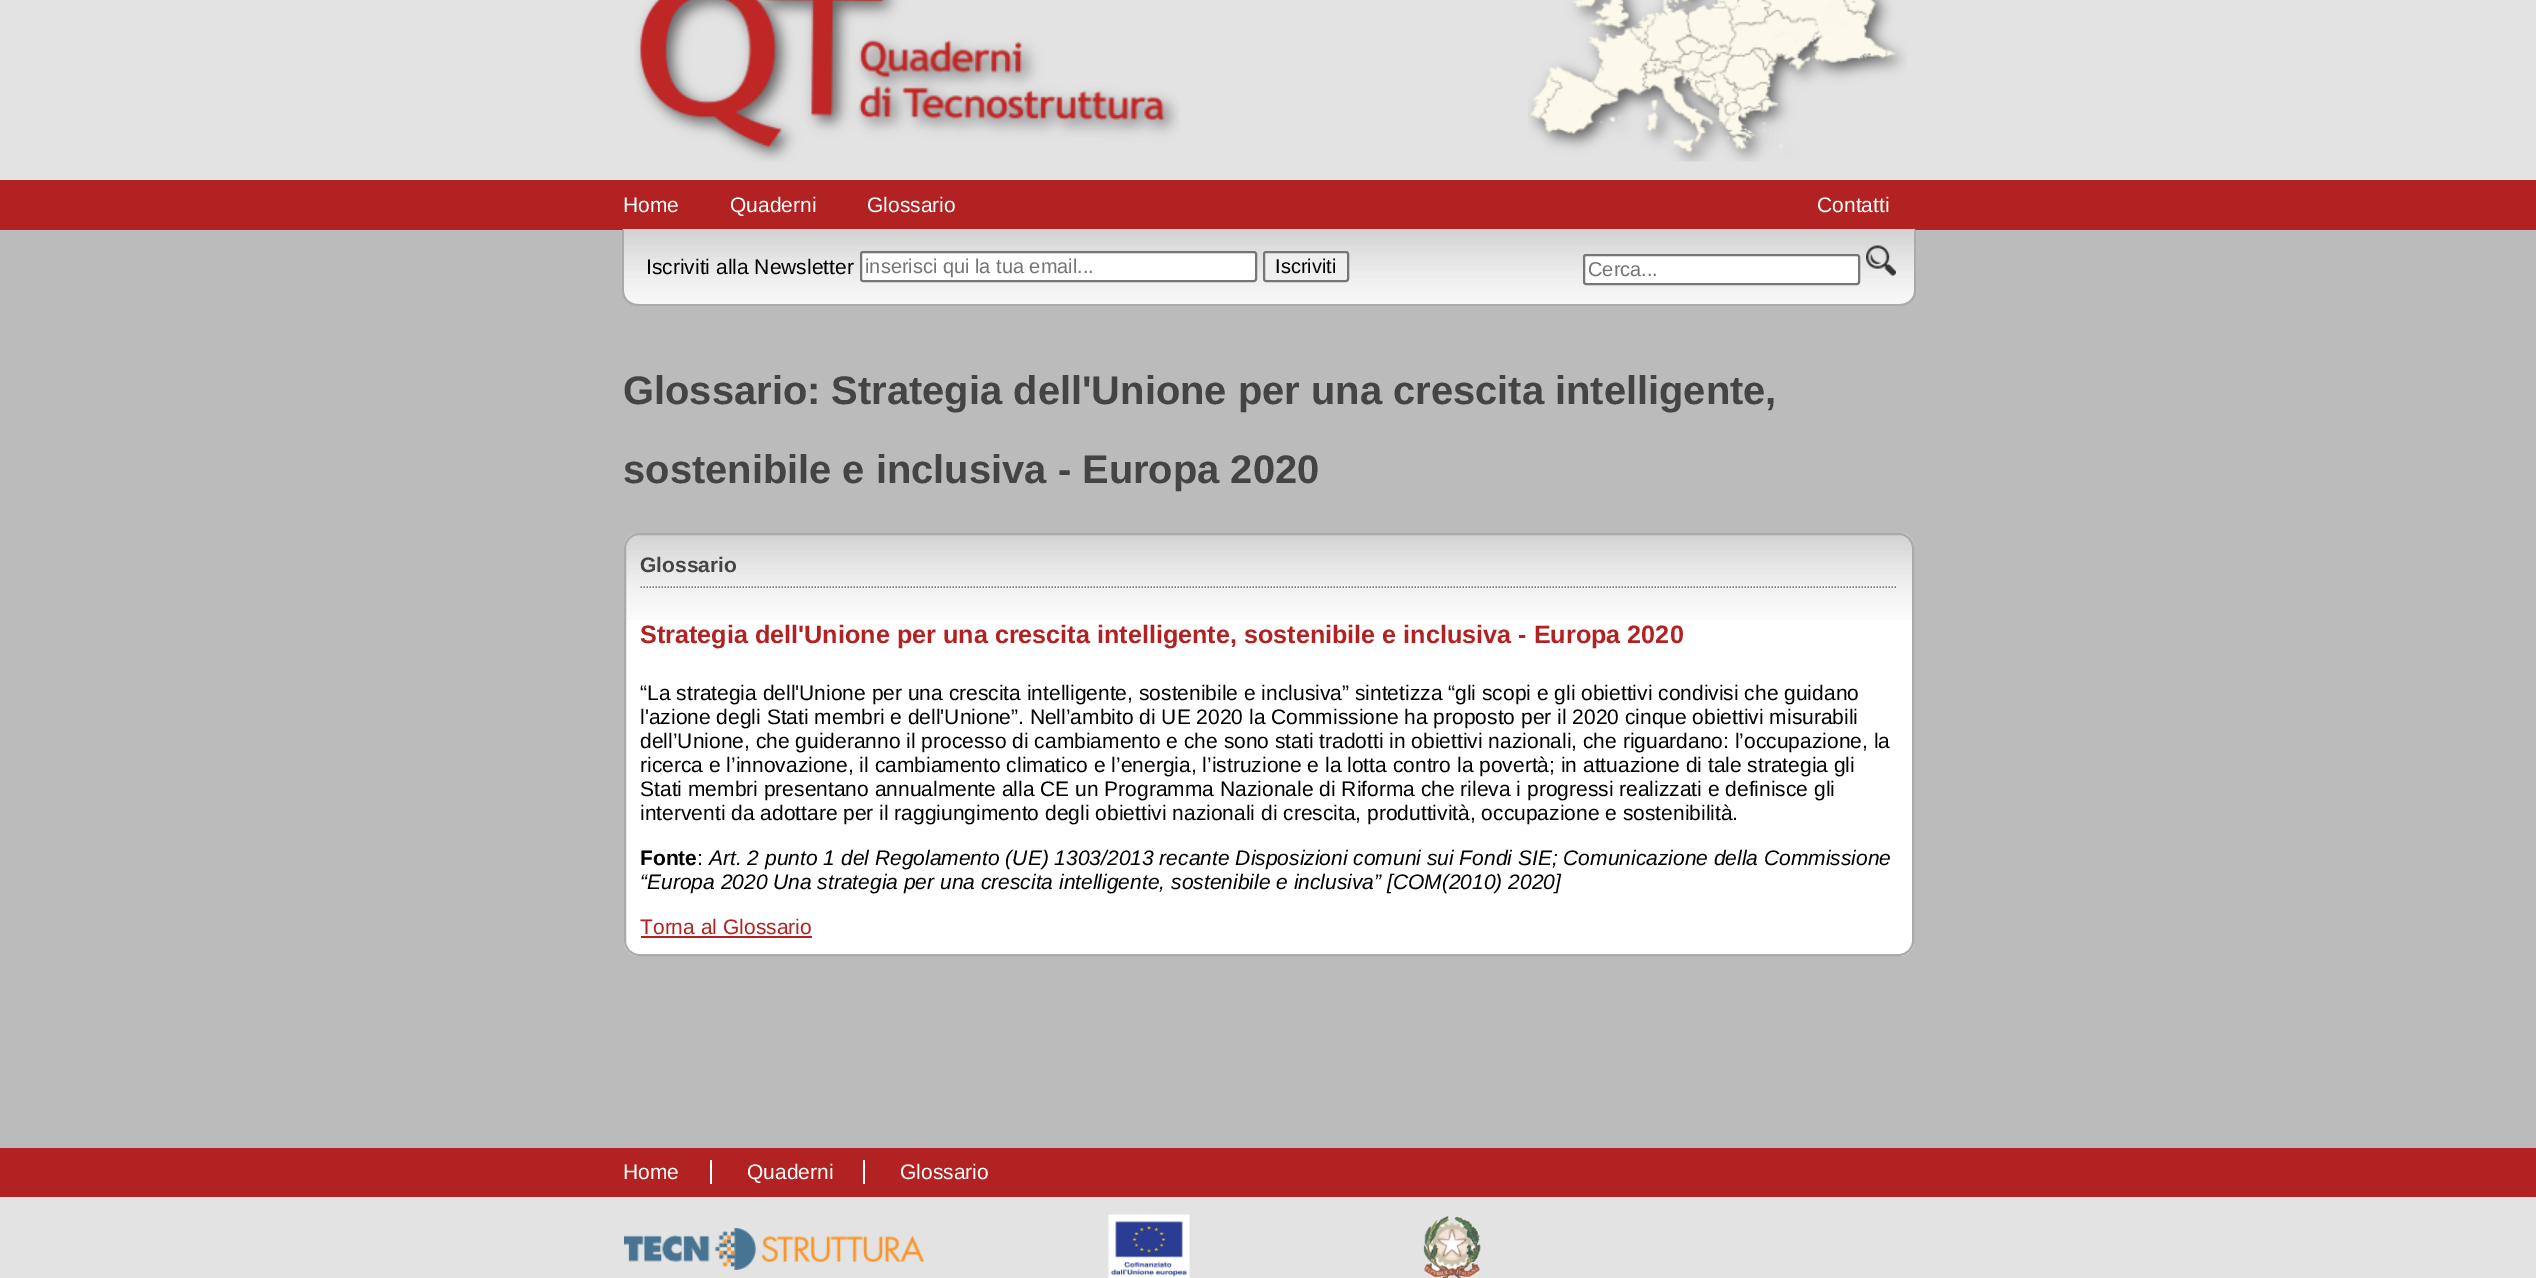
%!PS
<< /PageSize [2536 1278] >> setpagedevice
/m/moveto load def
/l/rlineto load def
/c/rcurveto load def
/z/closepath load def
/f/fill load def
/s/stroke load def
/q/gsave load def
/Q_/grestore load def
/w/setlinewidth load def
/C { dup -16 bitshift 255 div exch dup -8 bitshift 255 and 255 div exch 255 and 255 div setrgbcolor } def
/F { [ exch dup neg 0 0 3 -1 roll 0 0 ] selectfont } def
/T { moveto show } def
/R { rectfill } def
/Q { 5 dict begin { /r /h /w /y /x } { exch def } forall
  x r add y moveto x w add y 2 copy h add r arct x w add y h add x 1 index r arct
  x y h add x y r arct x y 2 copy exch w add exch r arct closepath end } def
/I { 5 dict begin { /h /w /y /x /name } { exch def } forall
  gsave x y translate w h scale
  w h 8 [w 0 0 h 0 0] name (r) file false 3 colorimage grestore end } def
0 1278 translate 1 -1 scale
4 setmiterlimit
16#BBBBBB C
0 0 2536 1278 R
16#E3E3E3 C
0 0 2536 180 R
(1.rgb) 634 0 546 162 I
(2.rgb) 1528 0 379 162 I
16#B22222 C
0 180 2536 50 R
/LiberationSans-Regular 21 F
16#FFFFFF C
(Home) 623 212 T
(Quaderni) 730 212 T
(Glossario) 867 212 T
(Contatti) 1817 212 T
(3.rgb) 622 229 1294 77 I
16#AAAAAA C
622 230 m 1294 0 l 0 61 l 0 8 -7 15 -16 15 c -1262 0 l -9 0 -16 -7 -16 -15 c z 624 230 m 1290 0 l 0 61 l 0 7 -6 13 -14 13 c -1262 0 l -8 0 -14 -6 -14 -13 c z eofill
16#000000 C
(Iscriviti alla Newsletter) 646 274 T
16#FFFFFF C
861 252 395 29 2 Q q f Q_
16#767676 C
2 w
s
/LiberationSans-Regular 20 F
16#757575 C
(inserisci qui la tua email...) 865 273 T
16#EFEFEF C
1264 252 84 29 2 Q q f Q_
16#767676 C
s
16#000000 C
(Iscriviti) 1275 273 T
16#FFFFFF C
1584 255 275 29 2 Q q f Q_
16#767676 C
s
16#757575 C
(Cerca...) 1588 276 T
(4.rgb) 1866 245 30 31 I
/LiberationSans-Bold 39.9 F
16#444444 C
(Glossario: Strategia dell'Unione per una crescita intelligente,) 623 404 T
(sostenibile e inclusiva - Europa 2020) 623 483 T
16#FFFFFF C
624 533 1290 423 15 Q f
(5.rgb) 624 533 1290 87 I
16#AAAAAA C
625 534 1288 421 14 Q s
16#808080 C
1.5 w
[1.5 1.5] 0 setdash
640.5 587 m 1257 0 l s
/LiberationSans-Bold 21 F
16#444444 C
(Glossario) 640 572 T
/LiberationSans-Bold 25.2 F
16#B22222 C
(Strategia dell'Unione per una crescita intelligente, sostenibile e inclusiva - Europa 2020) 640 643 T
/LiberationSans-Regular 21 F
16#000000 C
(“La strategia dell'Unione per una crescita intelligente, sostenibile e inclusiva” sintetizza “gli scopi e gli obiettivi condivisi che guidano) 640 700 T
(l'azione degli Stati membri e dell'Unione”. Nell’ambito di UE 2020 la Commissione ha proposto per il 2020 cinque obiettivi misurabili) 640 724 T
(dell’Unione, che guideranno il processo di cambiamento e che sono stati tradotti in obiettivi nazionali, che riguardano: l’occupazione, la) 640 748 T
(ricerca e l’innovazione, il cambiamento climatico e l’energia, l’istruzione e la lotta contro la povertà; in attuazione di tale strategia gli) 640 772 T
(Stati membri presentano annualmente alla CE un Programma Nazionale di Riforma che rileva i progressi realizzati e definisce gli) 640 796 T
(interventi da adottare per il raggiungimento degli obiettivi nazionali di crescita, produttività, occupazione e sostenibilità.) 640 820 T
/LiberationSans-Bold 21 F
(Fonte) 640 865 T
/LiberationSans-Regular 21 F
(:) 697 865 T
/LiberationSans-Italic 21 F
(Art. 2 punto 1 del Regolamento \(UE\) 1303/2013 recante Disposizioni comuni sui Fondi SIE; Comunicazione della Commissione) 709 865 T
(“Europa 2020 Una strategia per una crescita intelligente, sostenibile e inclusiva” [COM\(2010\) 2020]) 640 889 T
/LiberationSans-Regular 21 F
16#B22222 C
(Torna al Glossario) 640 934 T
641 936 171 2 R
0 1148 2536 49 R
16#FFFFFF C
(Home) 623 1179 T
710 1160 2 24 R
(Quaderni) 747 1179 T
863 1160 2 24 R
(Glossario) 900 1179 T
16#E3E3E3 C
0 1197 2536 81 R
(6.rgb) 624 1228 300 42 I
(7.rgb) 1108 1214 82 64 I
(8.rgb) 1423 1216 58 62 I
showpage
